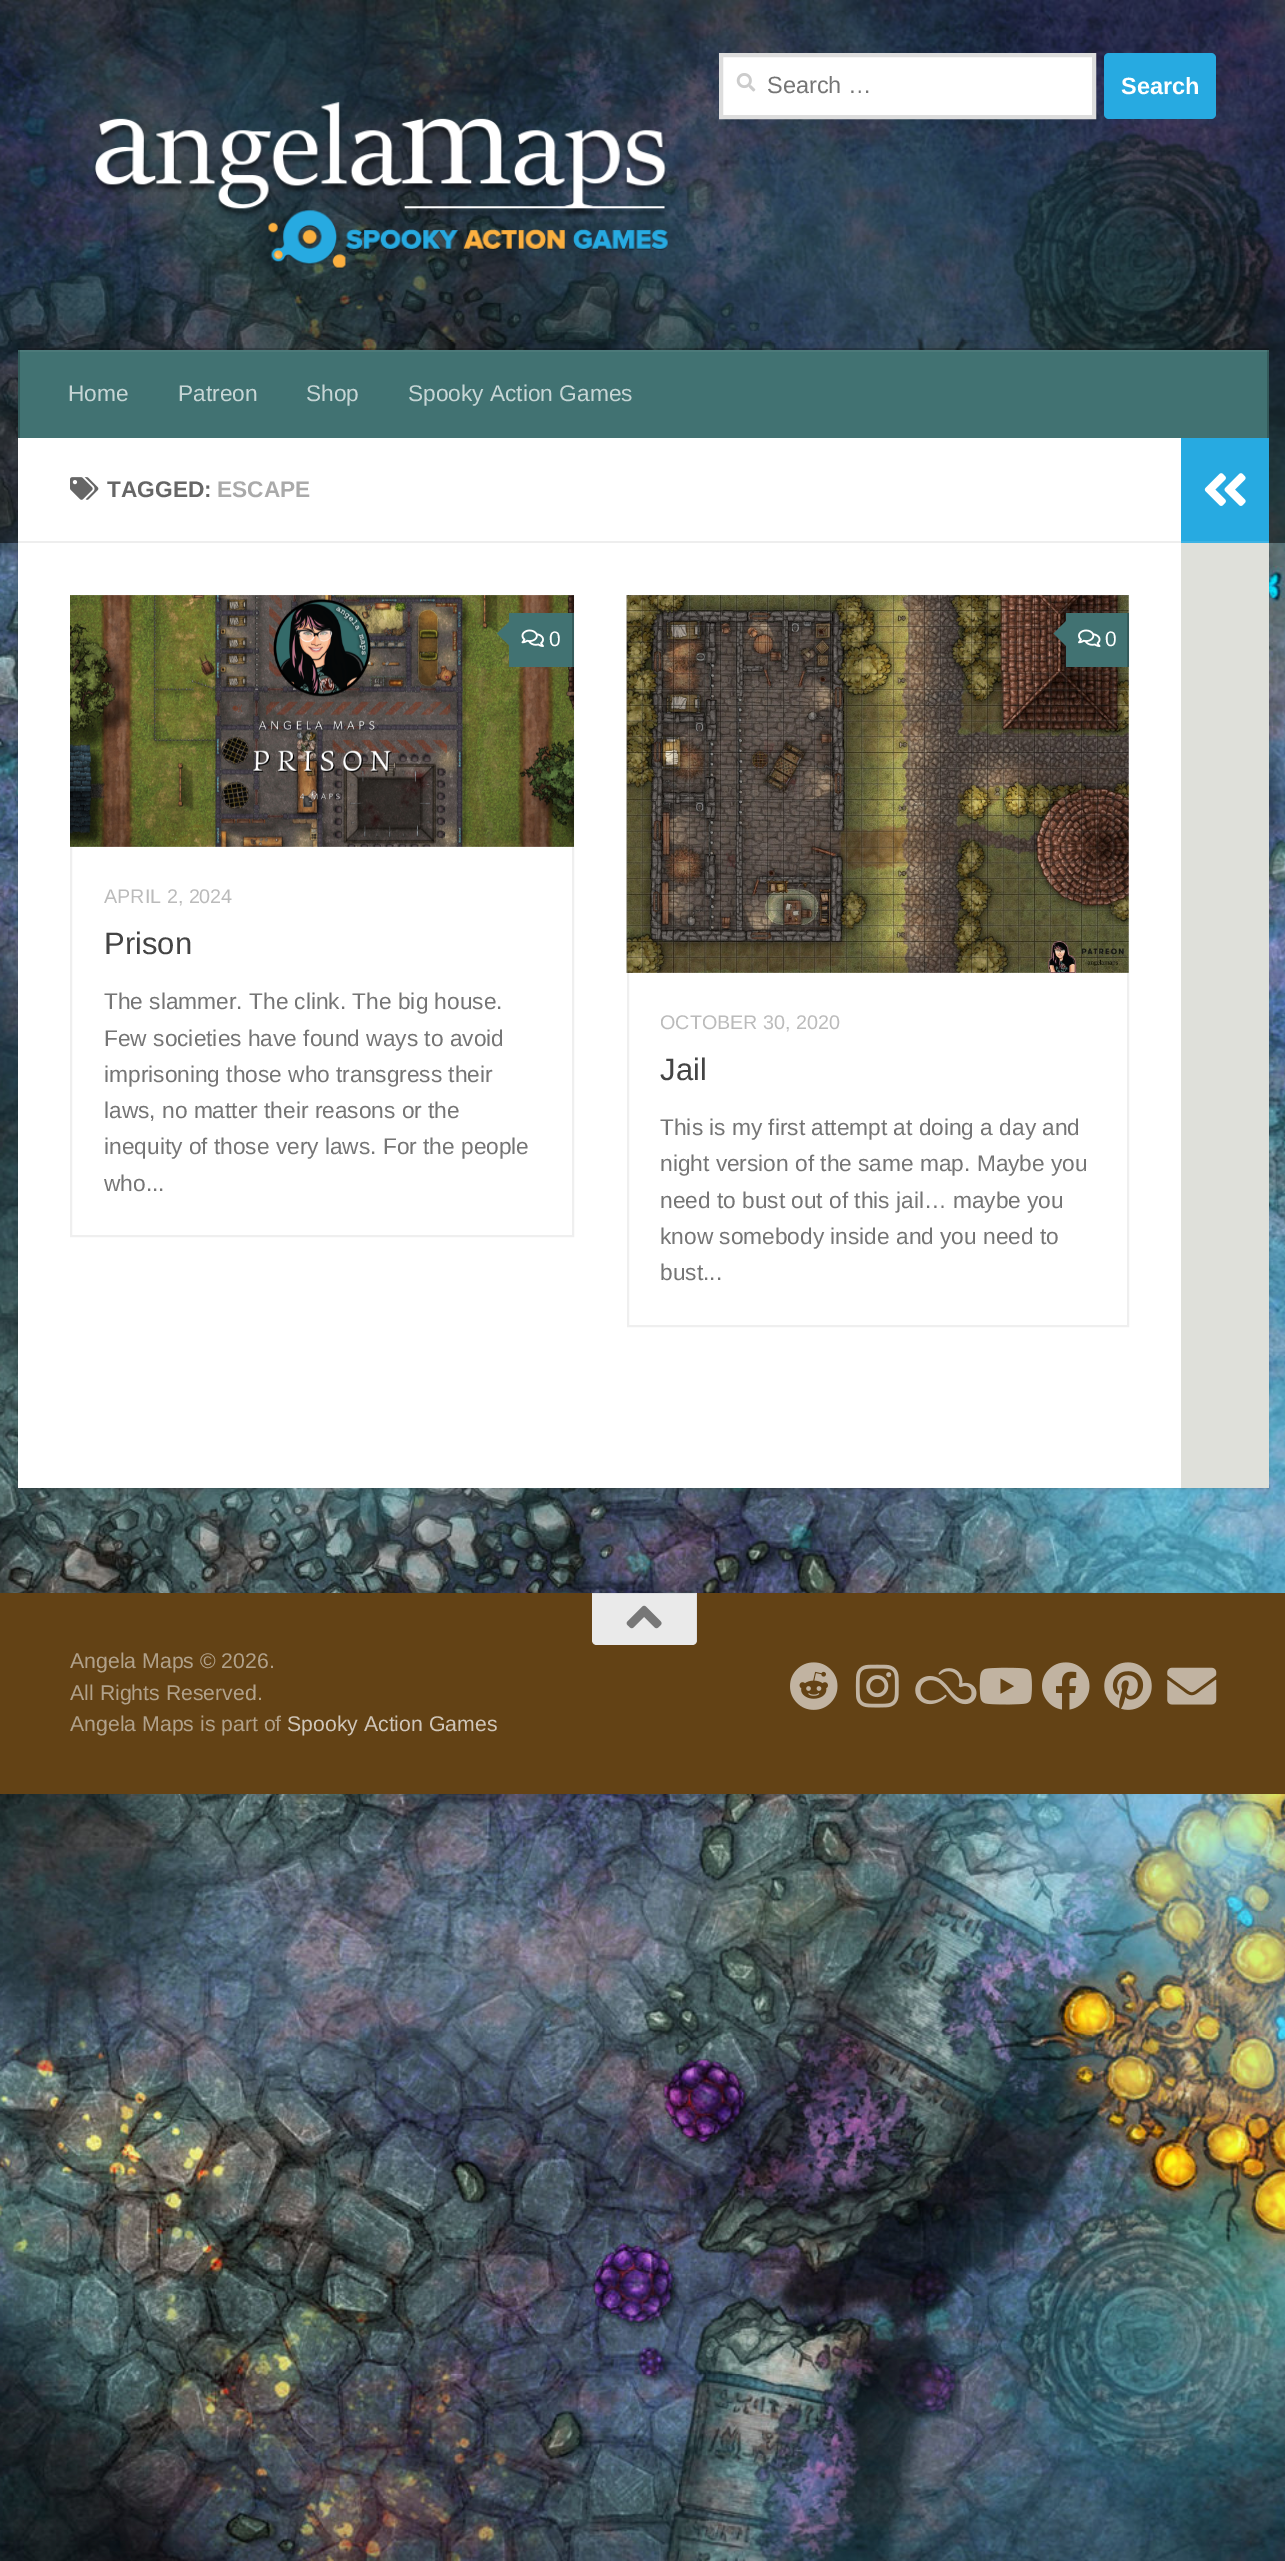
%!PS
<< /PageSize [1285 2561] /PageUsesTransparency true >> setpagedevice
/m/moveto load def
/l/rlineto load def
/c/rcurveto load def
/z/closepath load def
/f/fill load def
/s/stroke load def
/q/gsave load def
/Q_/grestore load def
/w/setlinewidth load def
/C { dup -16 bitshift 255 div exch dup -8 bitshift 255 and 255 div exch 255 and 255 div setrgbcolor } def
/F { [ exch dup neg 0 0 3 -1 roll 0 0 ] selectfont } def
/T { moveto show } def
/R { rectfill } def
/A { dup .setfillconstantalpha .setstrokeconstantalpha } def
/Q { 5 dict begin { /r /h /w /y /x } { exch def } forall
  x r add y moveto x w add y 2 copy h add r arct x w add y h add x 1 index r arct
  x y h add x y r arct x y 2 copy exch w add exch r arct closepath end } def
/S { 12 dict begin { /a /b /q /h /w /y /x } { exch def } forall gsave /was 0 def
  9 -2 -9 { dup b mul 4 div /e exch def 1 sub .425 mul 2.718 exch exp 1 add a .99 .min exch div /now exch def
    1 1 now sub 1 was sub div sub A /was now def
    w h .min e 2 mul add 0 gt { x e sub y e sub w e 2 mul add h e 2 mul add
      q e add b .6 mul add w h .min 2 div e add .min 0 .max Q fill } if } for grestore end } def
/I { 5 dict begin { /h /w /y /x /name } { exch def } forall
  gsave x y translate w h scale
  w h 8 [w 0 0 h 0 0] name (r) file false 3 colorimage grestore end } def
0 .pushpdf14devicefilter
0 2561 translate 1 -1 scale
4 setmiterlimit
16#FFFFFF C
0 0 1285 2561 R
(1.rgb) 0 0 1285 2561 I
16#000000 C
18 439 1251 1050 0 1 .1 S
0.5 A
0 0 1285 543 R
1 A
16#FFFFFF C
721 55 m 373 0 l 0 62 l -373 0 l z q f Q_
16#DDDDDD C
4 w
s
(2.rgb) 736 73 20 19 I
/LiberationSans-Regular 23.5 F
16#757575 C
(Search …) 767 93 T
16#27AAE1 C
1104 53 112 66 5 Q f
/LiberationSans-Bold 23.5 F
16#FFFFFF C
(Search) 1121 94 T
(3.rgb) 93 102 575 167 I
0.2 A
16#000000 C
18 348 m 0 2 l 1251 0 l 0 86 l 0 -88 l z f
1 A
16#417272 C
20 350 1247 88 R
16#345B5B C
1267 350 2 88 R
18 350 2 88 R
0.05 A
16#FFFFFF C
18 350 1251 2 R
/LiberationSans-Regular 22.7 F
1 A
16#C6D5D5 C
(Home) 68 401 T
(Patreon) 178 401 T
(Shop) 306 401 T
(Spooky Action Games) 408 401 T
16#FFFFFF C
18 438 1163 1050 R
16#EEEEEE C
18 541 1163 2 R
(4.rgb) 70 477 29 23 I
/LiberationSans-Bold 22.7 F
16#666666 C
(TAGGED:) 107 497 T
16#AAAAAA C
(ESCAPE) 217 497 T
16#EFEFEF C
2 w
71 596 502 640 rectstroke
(5.rgb) 70 595 504 252 I
16#417272 C
509 613 63 54 R
16#345B5B C
572 613 2 54 R
16#417272 C
513 618 m 0 31 l -16 -15.5 l z f
(6.rgb) 521 629 23 18 I
/LiberationSans-Regular 21 F
16#FFFFFF C
(0) 549 646 T
/LiberationSans-Regular 19.75 F
16#BBBBBB C
(APRIL 2, 2024) 104 903 T
/LiberationSans-Regular 31 F
16#444444 C
(Prison) 104 954 T
/LiberationSans-Regular 22.7 F
16#757575 C
(The slammer. The clink. The big house.) 104 1009 T
(Few societies have found ways to avoid) 104 1046 T
(imprisoning those who transgress their) 104 1082 T
(laws, no matter their reasons or the) 104 1118 T
(inequity of those very laws. For the people) 104 1154 T
(who...) 104 1191 T
16#EFEFEF C
628 596 500 730 rectstroke
(7.rgb) 626 595 503 378 I
16#417272 C
1066 613 61 54 R
16#345B5B C
1127 613 2 54 R
16#417272 C
1069 618 m 0 31 l -15.5 -15.5 l z f
(8.rgb) 1078 629 23 18 I
/LiberationSans-Regular 21 F
16#FFFFFF C
(0) 1105 646 T
/LiberationSans-Regular 19.75 F
16#BBBBBB C
(OCTOBER 30, 2020) 660 1029 T
/LiberationSans-Regular 31 F
16#444444 C
(Jail) 660 1080 T
/LiberationSans-Regular 22.7 F
16#757575 C
(This is my first attempt at doing a day and) 660 1135 T
(night version of the same map. Maybe you) 660 1171 T
(need to bust out of this jail… maybe you) 660 1208 T
(know somebody inside and you need to) 660 1244 T
(bust...) 660 1280 T
16#27AAE1 C
1181 438 88 103 R
16#3DB3E4 C
1181 541 88 2 R
(9.rgb) 1204 473 42 33 I
16#DFE0DA C
1181 543 88 945 R
16#634215 C
0 1593 1285 201 R
16#EAEAEA C
592 1593 m 105 0 l 0 47 l 0 3 -2 5 -5 5 c -95 0 l -3 0 -5 -2 -5 -5 c z f
0.05 A
16#000000 C
592 1594 m 104 0 l 0 49 l 1 -1 1 -2 1 -3 c 0 -47 l -105 0 l z f
1 A
(10.rgb) 626 1605 36 24 I
/LiberationSans-Regular 21.25 F
16#B1A18A C
(Angela Maps © 2026.) 70 1668 T
(All Rights Reserved.) 70 1700 T
(Angela Maps is part of) 70 1731 T
16#D0C6B9 C
(Spooky Action Games) 287 1731 T
(11.rgb) 790 1662 48 48 I
(12.rgb) 855 1664 44 44 I
(13.rgb) 915 1668 62 37 I
(14.rgb) 979 1667 53 38 I
(15.rgb) 1042 1662 48 48 I
(16.rgb) 1104 1662 48 48 I
(17.rgb) 1167 1667 50 38 I
.poppdf14devicefilter showpage
